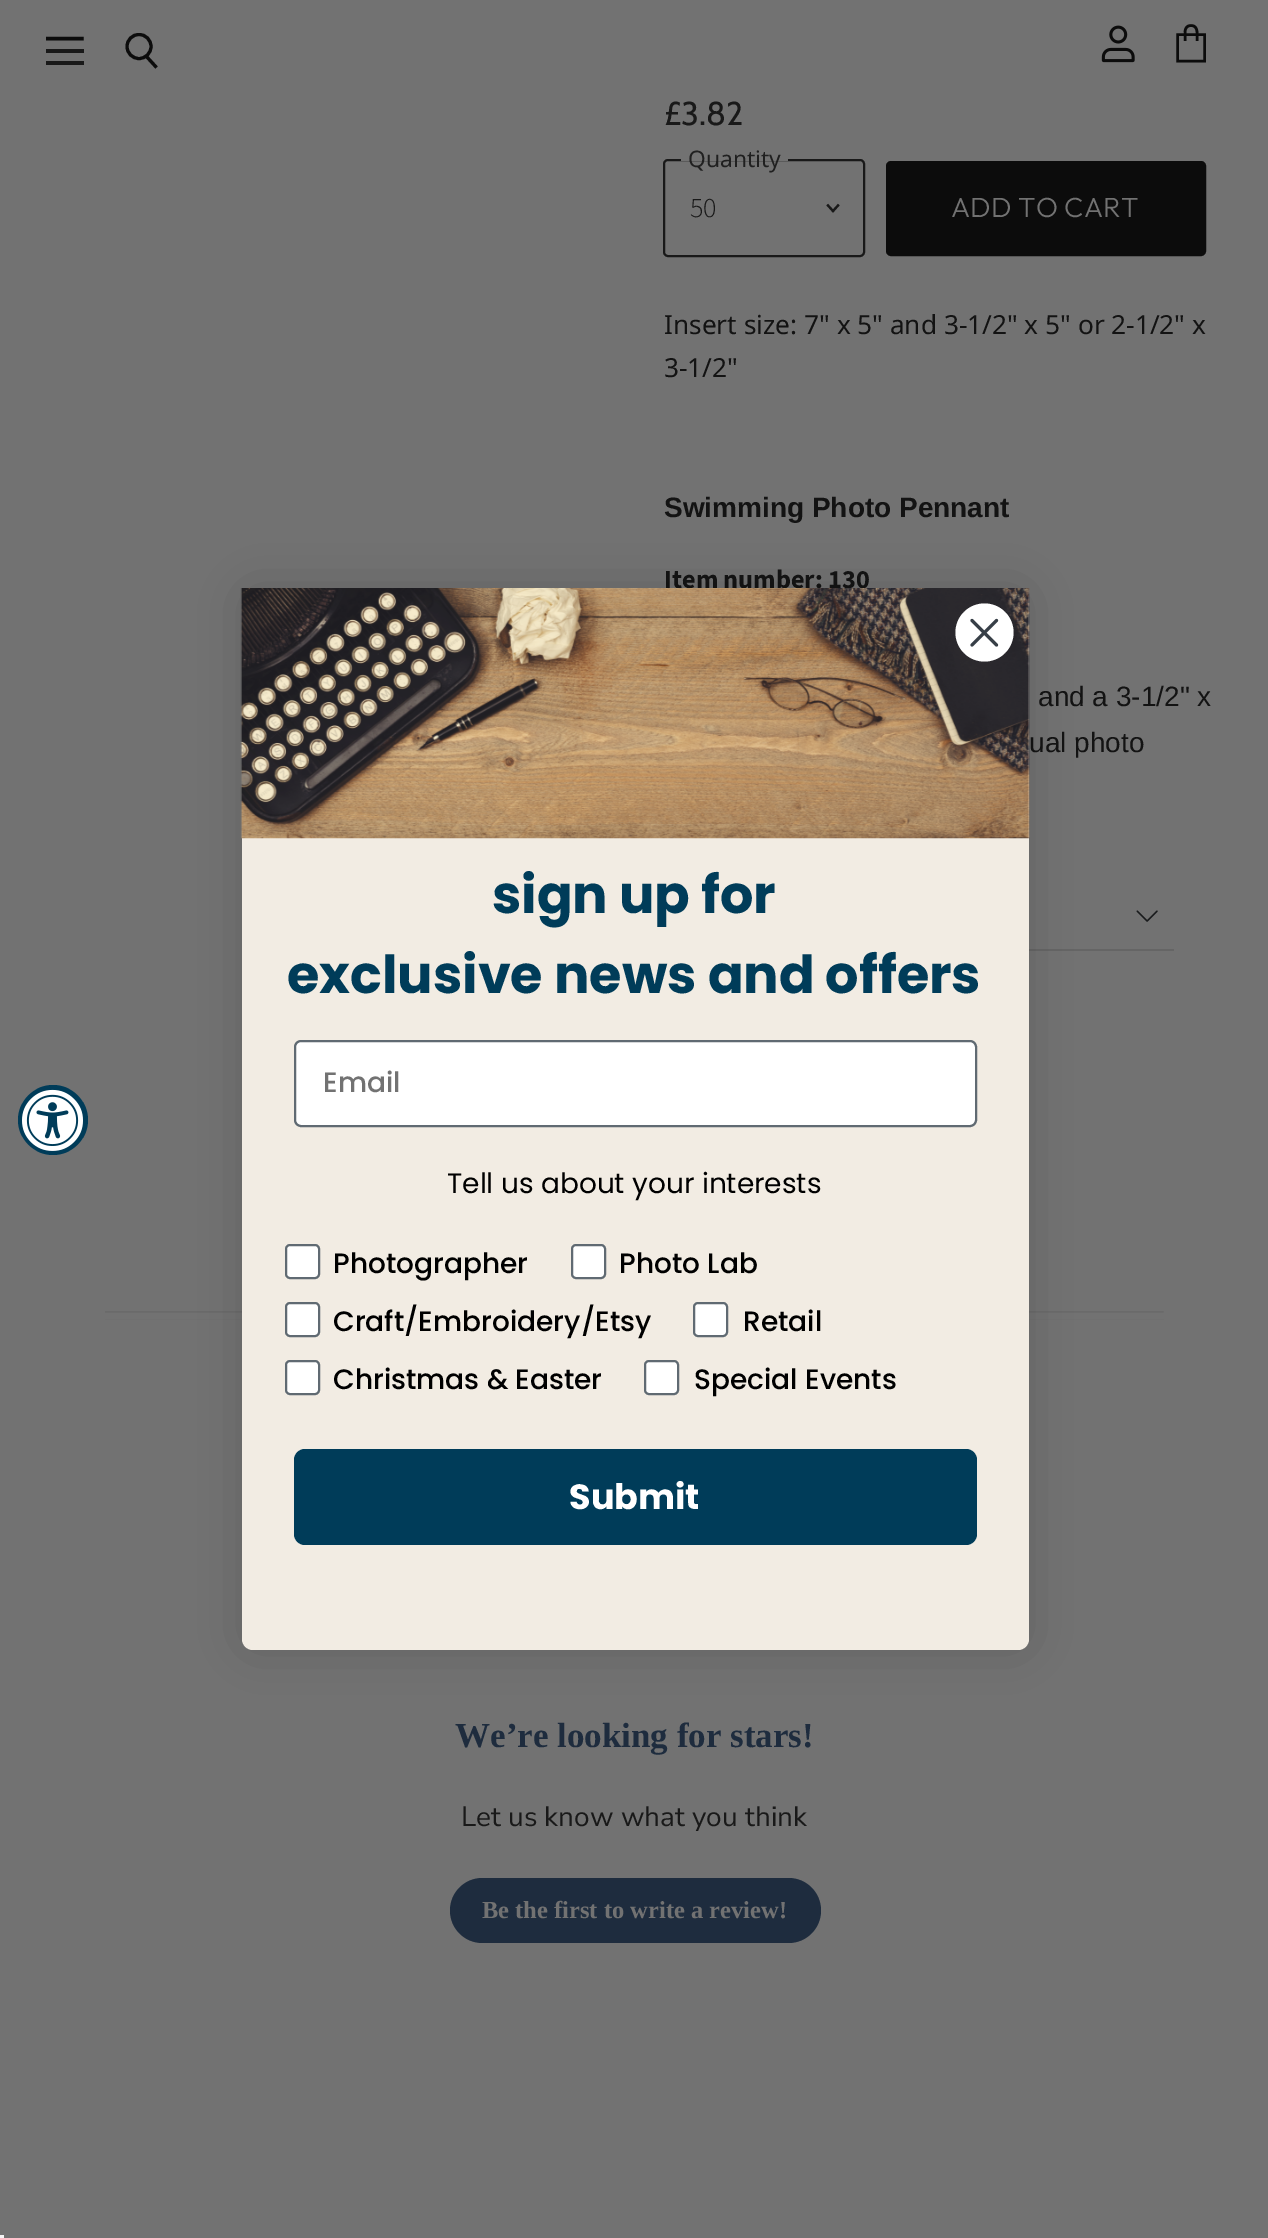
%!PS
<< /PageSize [1268 2238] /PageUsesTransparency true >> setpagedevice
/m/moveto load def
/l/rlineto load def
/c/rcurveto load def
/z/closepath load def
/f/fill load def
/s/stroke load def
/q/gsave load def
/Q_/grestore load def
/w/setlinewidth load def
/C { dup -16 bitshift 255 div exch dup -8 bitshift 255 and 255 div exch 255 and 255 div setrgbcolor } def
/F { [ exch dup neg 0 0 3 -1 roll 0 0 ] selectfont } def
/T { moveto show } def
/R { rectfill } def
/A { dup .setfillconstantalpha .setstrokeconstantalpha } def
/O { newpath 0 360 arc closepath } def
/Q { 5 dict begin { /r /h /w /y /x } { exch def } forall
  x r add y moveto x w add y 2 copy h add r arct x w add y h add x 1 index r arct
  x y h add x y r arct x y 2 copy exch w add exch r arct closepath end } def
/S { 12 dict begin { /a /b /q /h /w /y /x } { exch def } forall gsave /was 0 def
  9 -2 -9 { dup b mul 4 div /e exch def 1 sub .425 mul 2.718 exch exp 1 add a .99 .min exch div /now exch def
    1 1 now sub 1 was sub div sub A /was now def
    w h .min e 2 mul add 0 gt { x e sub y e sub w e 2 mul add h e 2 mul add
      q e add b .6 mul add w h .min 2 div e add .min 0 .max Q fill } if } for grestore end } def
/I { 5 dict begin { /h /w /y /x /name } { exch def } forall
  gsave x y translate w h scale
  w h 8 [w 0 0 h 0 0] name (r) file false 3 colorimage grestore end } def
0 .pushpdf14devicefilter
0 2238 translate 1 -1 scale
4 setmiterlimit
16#727272 C
0 0 1268 2238 R
q
46 35 38 32 rectclip
16#0C0C0C C
3.5 w
2 setlinecap
1 setlinejoin
82 38.5 m -35 0 l s
Q_
16#191919 C
46 49 38 4 R
46 61 38 4 R
16#0C0C0C C
3.1 w
156.5 67.5 m -10 -11 l s
139 46.5 12 O s
(1.rgb) 1101 25 34 38 I
2.6 w
1177.5 34.5 m 27 0 l 0 26.5 l -27 0 l z 1197 41 m 0 -8.5 l 0 -5 -2.5 -7 -6 -7 c -3.5 0 -6 2 -6 7 c 0 8.5 l s
/Cabin-Regular 33 F
16#191919 C
(£3.82) 664 125 T
2 w
664 160 200 96 4 Q s
16#727272 C
681 159 107 2 R
/NotoSans-Regular 22.75 F
16#202020 C
(Quantity) 688 167 T
/SourceSansPro-Light 28 F
16#191919 C
(50) 690 217 T
2.2 w
2 setlinecap
833 211 m 5 -5.5 l 833 211 m -5 -5.5 l s
16#0C0C0C C
887 162 318 93 4 Q q f Q_
2 w
0 setlinecap
s
/Outfit-Light 27.75 F
16#727272 C
951 217 m .25 0 (ADD TO CART) ashow
/NotoSans-Regular 26.25 F
16#131313 C
(Insert size: 7" x 5" and 3-1/2" x 5" or 2-1/2" x) 664 334 T
(3-1/2") 664 377 T
/LiberationSans-Bold 28 F
(Swimming Photo Pennant) 664 517 T
/SourceSansPro-Bold 26.25 F
(Item number: 130) 664 588 T
/LiberationSans-Regular 28 F
(and a 3-1/2" x) 1038 706 T
(ual photo) 1029 752 T
16#656565 C
1029 949 145 2 R
(2.rgb) 1136 910 22 12 I
(3.rgb) 105 1311 1059 9 I
/LiberationSerif-Bold 35 F
16#1E2C3E C
(We’re looking for stars!) 455 1747 T
/NunitoSans-ExtraLight 28 F
16#191919 C
(Let us know what you think) 461 1826 T
16#1E2C3E C
450 1878 371 65 32.5 Q f
/LiberationSerif-Bold 24.5 F
16#727272 C
(Be the first to write a review!) 482 1918 T
16#003C59 C
53 1120 35 O f
(4.rgb) 22 1089 61 62 I
16#000000 C
242 588 787 1062 11 26 .15 S
16#F2ECE3 C
242 588 787 1062 11 Q f
(5.rgb) 240 588 790 251 I
16#FFFFFF C
984.5 632.5 29 O f
16#373F47 C
3.1 w
1 setlinecap
1 setlinejoin
972 620.5 m 24.5 24.5 l 972 645 m 24.5 -24.5 l z s
/Poppins-Bold 52.5 F
16#003C59 C
(sign up for) 492 913 T
(exclusive news and offers) 287 993 T
16#FFFFFF C
295 1041 681 85 6 Q q f Q_
16#606A72 C
2 w
0 setlinecap
0 setlinejoin
s
/Poppins-Medium 28 F
16#727272 C
(Email) 323 1092 T
/Poppins-Regular 28 F
16#000000 C
(Tell us about your interests) 447 1193 T
16#FFFFFF C
286 1245 33 33 4 Q q f Q_
16#606A72 C
s
/Poppins-Medium 28 F
16#000000 C
(Photographer) 333 1273 T
16#FFFFFF C
572 1245 33 33 4 Q q f Q_
16#606A72 C
s
16#000000 C
(Photo Lab) 619 1273 T
16#FFFFFF C
286 1303 33 33 4 Q q f Q_
16#606A72 C
s
16#000000 C
(Craft/Embroidery/Etsy) 333 1331 T
16#FFFFFF C
694 1303 33 33 4 Q q f Q_
16#606A72 C
s
16#000000 C
(Retail) 743 1331 T
16#FFFFFF C
286 1361 33 33 4 Q q f Q_
16#606A72 C
s
16#000000 C
(Christmas & Easter) 333 1389 T
16#FFFFFF C
645 1361 33 33 4 Q q f Q_
16#606A72 C
s
16#000000 C
(Special Events) 694 1389 T
16#003C59 C
294 1449 683 96 11 Q f
/Poppins-Bold 35 F
16#FFFFFF C
(Submit) 569 1509 T
16#F5F5F5 C
0 2235 4 3 R
.poppdf14devicefilter showpage
